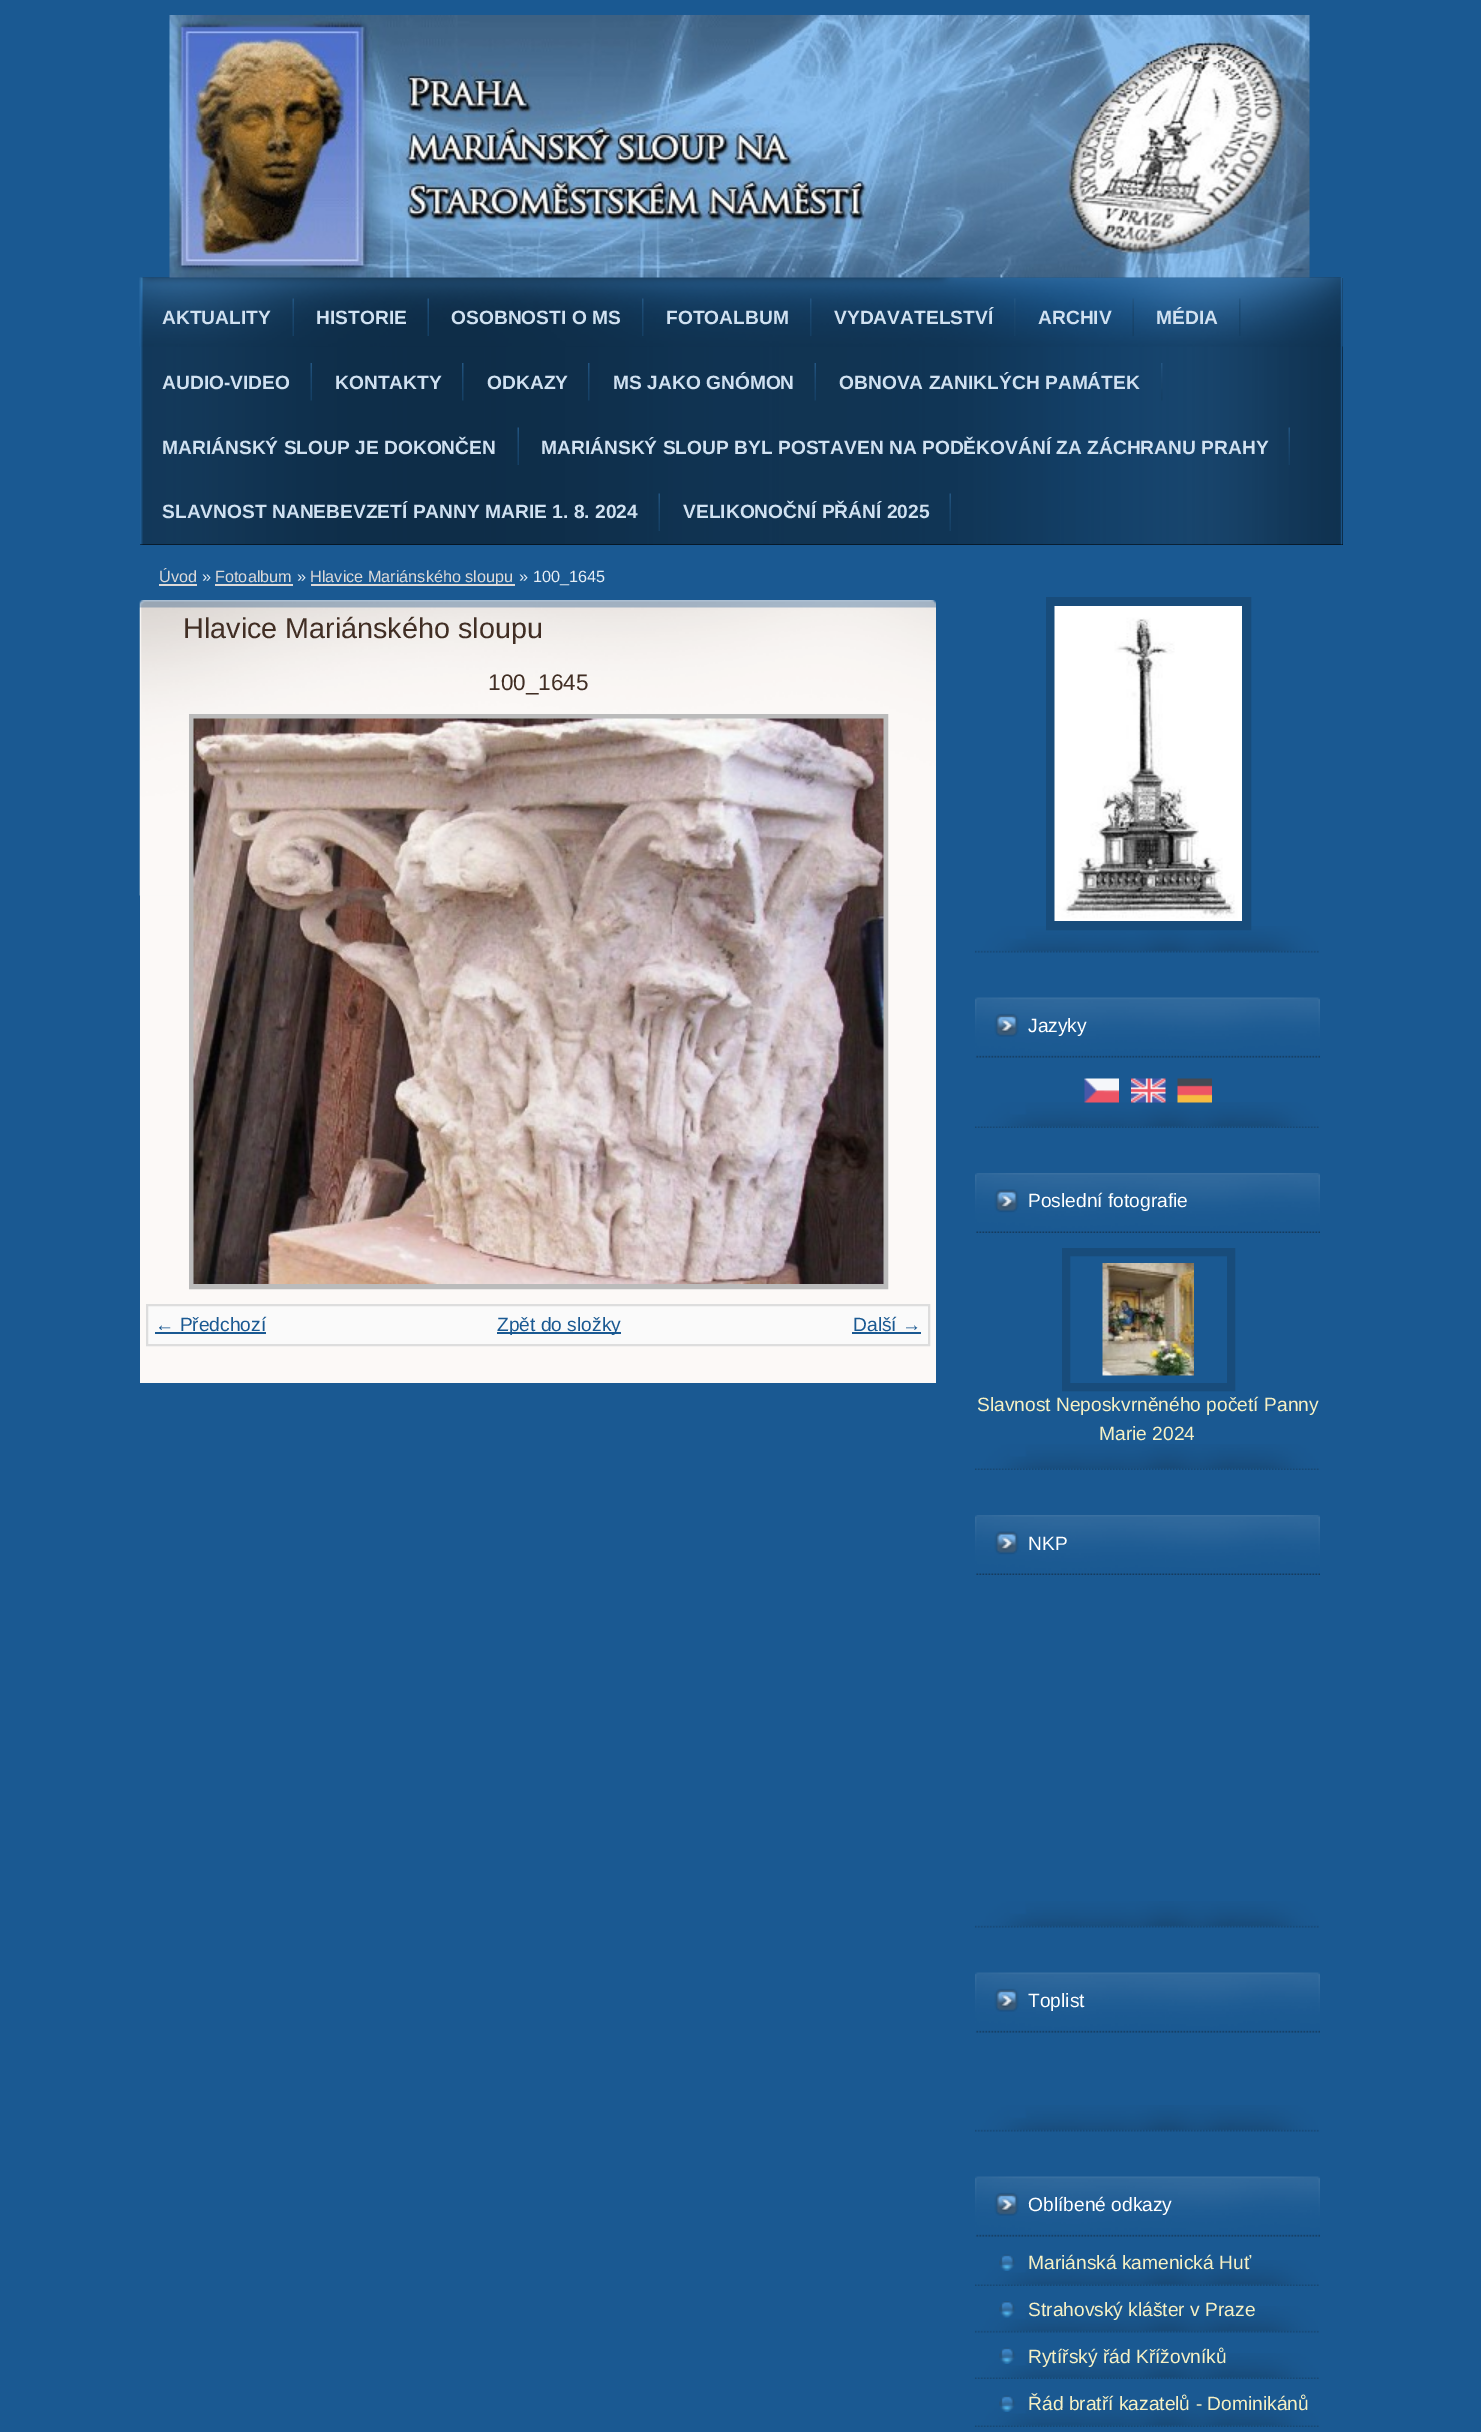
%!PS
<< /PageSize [1481 2432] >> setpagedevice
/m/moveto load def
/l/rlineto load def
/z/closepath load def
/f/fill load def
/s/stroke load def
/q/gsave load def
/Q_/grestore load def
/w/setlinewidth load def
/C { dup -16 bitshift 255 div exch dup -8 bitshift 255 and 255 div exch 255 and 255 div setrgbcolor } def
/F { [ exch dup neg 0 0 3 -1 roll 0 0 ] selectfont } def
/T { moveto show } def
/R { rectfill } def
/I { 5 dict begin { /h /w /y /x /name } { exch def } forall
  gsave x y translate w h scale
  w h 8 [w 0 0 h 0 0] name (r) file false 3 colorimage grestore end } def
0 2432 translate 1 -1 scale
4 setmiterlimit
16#1A5992 C
0 0 1481 2432 R
16#000000 C
140 278 1203 267 R
(2.rgb) 140 277 1203 268 I
(3.rgb) 139 277 1204 70 I
(1.rgb) 169 15 1141 263 I
(4.rgb) 292 298 2 38 I
/LiberationSans-Bold 19.2 F
16#D0E1F1 C
(AKTUALITY) 162 324 T
(5.rgb) 427 298 2 38 I
(HISTORIE) 316 324 T
(6.rgb) 642 298 2 38 I
(OSOBNOSTI O MS) 451 324 T
(7.rgb) 810 298 2 38 I
(FOTOALBUM) 666 324 T
(8.rgb) 1014 298 2 38 I
(VYDAVATELSTVÍ) 834 324 T
(9.rgb) 1132 298 2 38 I
(ARCHIV) 1038 324 T
(10.rgb) 1239 298 2 38 I
(MÉDIA) 1156 324 T
(11.rgb) 310 363 2 38 I
(AUDIO-VIDEO) 162 389 T
(12.rgb) 462 363 2 38 I
(KONTAKTY) 335 389 T
(13.rgb) 588 363 2 38 I
(ODKAZY) 487 389 T
(14.rgb) 814 363 2 38 I
(MS JAKO GNÓMON) 613 389 T
(15.rgb) 1161 363 2 38 I
(OBNOVA ZANIKLÝCH PAMÁTEK) 839 389 T
(16.rgb) 517 427 2 38 I
(MARIÁNSKÝ SLOUP JE DOKONČEN) 162 454 T
(17.rgb) 1288 427 2 38 I
(MARIÁNSKÝ SLOUP BYL POSTAVEN NA PODĚKOVÁNÍ ZA ZÁCHRANU PRAHY) 541 454 T
(18.rgb) 658 493 2 38 I
(SLAVNOST NANEBEVZETÍ PANNY MARIE 1. 8. 2024) 162 518 T
(19.rgb) 949 493 2 38 I
(VELIKONOČNÍ PŘÁNÍ 2025) 683 518 T
/LiberationSans-Regular 16.25 F
16#DDDAD9 C
(Úvod) 159 582 T
159 584 38 2 R
16#E5EDF5 C
(») 202 582 T
16#DDDAD9 C
(Fotoalbum) 215 582 T
215 584 78 2 R
16#E5EDF5 C
(») 297 582 T
16#DDDAD9 C
311 584 204 2 R
(Hlavice Mariánského sloupu) 310 582 T
16#E5EDF5 C
(» 100_1645) 519 582 T
16#FCF9F7 C
140 895 796 488 R
(20.rgb) 139 600 797 296 I
/LiberationSans-Regular 28.75 F
16#412E24 C
(Hlavice Mariánského sloupu) 183 638 T
/LiberationSans-Regular 22.5 F
(100_1645) 488 690 T
16#BBBBBB C
5 w
191.5 716.5 694 570 rectstroke
(21.rgb) 193 718 691 566 I
16#FAFAFA C
147 1305 m 782 0 l 0 40 l -782 0 l z q f Q_
16#DDDDDD C
2 w
s
/LiberationSans-Regular 19.2 F
16#1A5992 C
(← Předchozí) 155 1331 T
155 1332 111 2 R
497 1332 124 2 R
(Zpět do složky) 497 1331 T
(Další →) 853 1331 T
852 1332 69 2 R
(22.rgb) 975 926 344 27 I
16#184C7B C
9 w
1050.5 601.5 196 324 rectstroke
(23.rgb) 1054 606 188 315 I
(24.rgb) 975 997 345 61 I
16#FFFFFF C
(Jazyky) 1028 1032 T
(25.rgb) 975 1102 344 26 I
(26.rgb) 1084 1078 35 25 I
(27.rgb) 1131 1078 35 25 I
(28.rgb) 1177 1078 35 25 I
(29.rgb) 975 1173 345 60 I
(Poslední fotografie) 1028 1207 T
(25.rgb) 975 1444 344 26 I
16#184C7B C
8 w
1066 1252 165 135 rectstroke
(30.rgb) 1102 1263 92 113 I
16#F6F1C4 C
(Slavnost Neposkvrněného početí Panny) 977 1411 T
(Marie 2024) 1099 1440 T
(29.rgb) 975 1515 345 60 I
16#FFFFFF C
(NKP) 1028 1550 T
(22.rgb) 975 1901 344 27 I
(24.rgb) 975 1972 345 61 I
(Toplist) 1028 2007 T
(22.rgb) 975 2105 344 27 I
(24.rgb) 975 2176 345 61 I
(Oblíbené odkazy) 1028 2211 T
(25.rgb) 975 2260 344 26 I
(31.rgb) 999 2254 17 17 I
16#F6F1C4 C
(Mariánská kamenická Huť) 1028 2269 T
(22.rgb) 975 2306 344 27 I
(32.rgb) 999 2301 17 17 I
(Strahovský klášter v Praze) 1028 2316 T
(25.rgb) 975 2353 344 26 I
(31.rgb) 999 2347 17 17 I
(Rytířský řád Křížovníků) 1028 2363 T
(25.rgb) 975 2401 344 26 I
(31.rgb) 999 2395 17 17 I
(Řád bratří kazatelů - Dominikánů) 1028 2410 T
showpage
